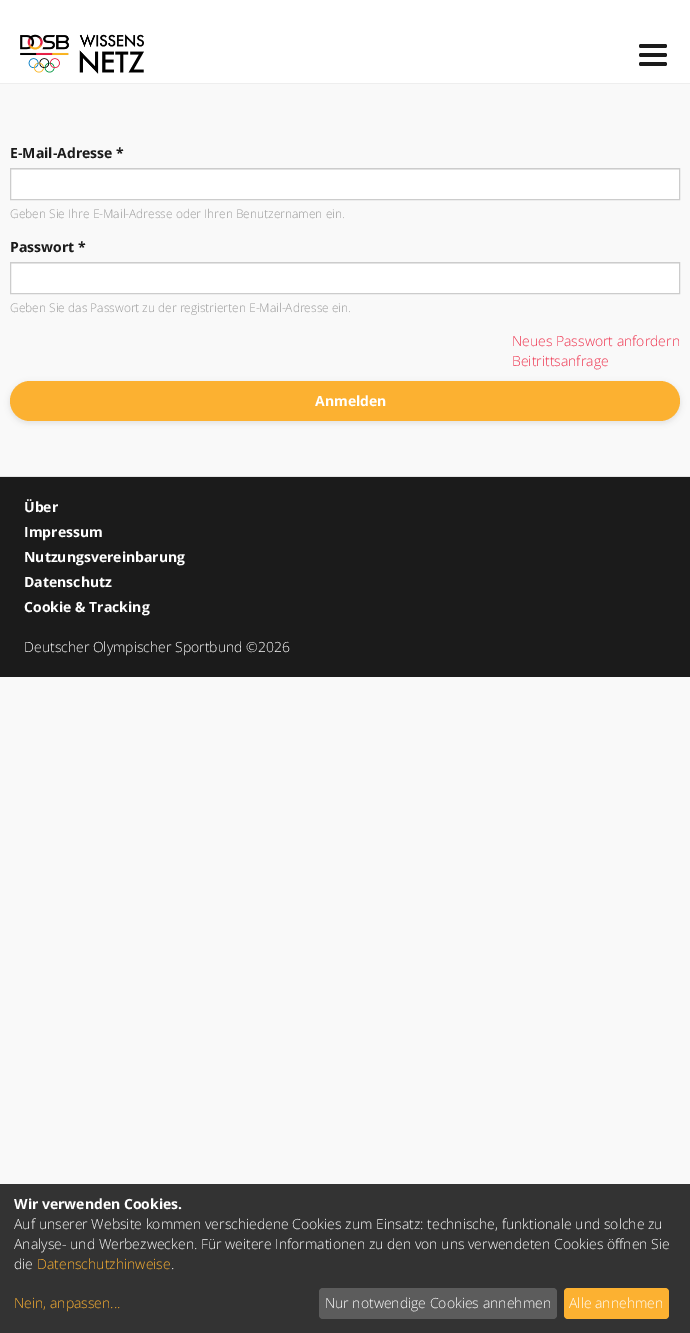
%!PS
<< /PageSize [690 1333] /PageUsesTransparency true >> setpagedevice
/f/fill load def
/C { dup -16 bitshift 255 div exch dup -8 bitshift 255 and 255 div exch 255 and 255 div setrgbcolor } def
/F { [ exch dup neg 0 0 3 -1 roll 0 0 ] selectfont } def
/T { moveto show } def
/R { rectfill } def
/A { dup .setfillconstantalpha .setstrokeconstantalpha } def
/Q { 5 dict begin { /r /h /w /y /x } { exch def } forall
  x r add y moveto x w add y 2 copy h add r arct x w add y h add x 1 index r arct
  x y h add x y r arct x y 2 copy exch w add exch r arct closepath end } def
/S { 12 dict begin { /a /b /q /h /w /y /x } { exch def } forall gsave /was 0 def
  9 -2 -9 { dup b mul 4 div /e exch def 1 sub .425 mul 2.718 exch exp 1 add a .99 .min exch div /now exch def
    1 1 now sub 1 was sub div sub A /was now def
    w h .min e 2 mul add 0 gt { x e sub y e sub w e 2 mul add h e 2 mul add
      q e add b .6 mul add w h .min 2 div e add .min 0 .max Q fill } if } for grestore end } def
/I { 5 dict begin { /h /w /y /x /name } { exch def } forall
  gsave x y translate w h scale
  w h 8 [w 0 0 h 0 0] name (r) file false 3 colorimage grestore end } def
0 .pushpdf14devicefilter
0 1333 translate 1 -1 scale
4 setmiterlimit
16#F9F9F9 C
0 0 690 1333 R
16#FFFFFF C
0 0 690 83 R
16#EEEEEE C
0 83 690 1 R
(1.rgb) 20 34 124 40 I
16#1B1B1B C
639 44 28 4 2 Q f
639 53 28 4 2 Q f
639 62 28 4 2 Q f
/OpenSans-Bold 14 F
(E-Mail-Adresse *) 10 158 T
16#FFFFFF C
11 170 668 29 R
16#ECECEC C
11 169 668 1 R
16#CCCCCC C
10.5 168.5 669 31 rectstroke
/OpenSans-Light 12 F
16#999999 C
(Geben Sie Ihre E-Mail-Adresse oder Ihren Benutzernamen ein.) 10 218 T
/OpenSans-Bold 14 F
16#1B1B1B C
(Passwort *) 10 252 T
16#FFFFFF C
11 264 668 29 R
16#ECECEC C
11 263 668 1 R
16#CCCCCC C
10.5 262.5 669 31 rectstroke
/OpenSans-Light 12 F
16#999999 C
(Geben Sie das Passwort zu der registrierten E-Mail-Adresse ein.) 10 312 T
/OpenSans-Light 14 F
16#EE334E C
(Neues Passwort anfordern) 512 346 T
(Beitrittsanfrage) 512 366 T
16#000000 C
9 382 672 42 21 2.5 .07 S
16#FCB131 C
10 381 670 40 20 Q f
/OpenSans-Bold 14 F
16#FFFFFF C
(Anmelden) 315 406 T
16#1B1B1B C
0 477 690 200 R
16#E5E5E5 C
0 476 690 1 R
16#FFFFFF C
(Über) 24 512 T
(Impressum) 24 537 T
(Nutzungsvereinbarung) 24 562 T
(Datenschutz) 24 587 T
(Cookie & Tracking) 24 612 T
/OpenSans-Light 14 F
(Deutscher Olympischer Sportbund ©2026) 24 652 T
16#333333 C
0 1184 690 149 R
/OpenSans-Bold 14 F
16#FFFFFF C
(Wir verwenden Cookies.) 14 1209 T
/OpenSans-Light 14 F
(Auf unserer Website kommen verschiedene Cookies zum Einsatz: technische, funktionale und solche zu) 14 1229 T
(Analyse- und Werbezwecken. Für weitere Informationen zu den von uns verwendeten Cookies öffnen Sie) 14 1249 T
(die) 14 1269 T
16#FCB131 C
(Datenschutzhinweise) 37 1269 T
16#FFFFFF C
(.) 171 1269 T
16#FCB131 C
(Nein, anpassen...) 14 1308 T
16#5C5C5C C
319 1288 238 31 4 Q f
16#FFFFFF C
(Nur notwendige Cookies annehmen) 325 1308 T
16#FCB131 C
564 1288 105 31 4 Q f
16#FFFFFF C
(Alle annehmen) 569 1308 T
.poppdf14devicefilter showpage
